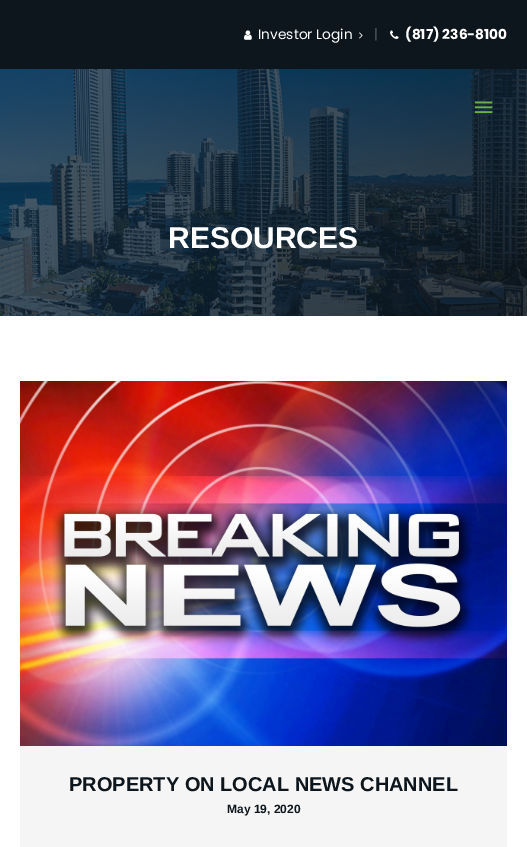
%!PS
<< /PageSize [527 847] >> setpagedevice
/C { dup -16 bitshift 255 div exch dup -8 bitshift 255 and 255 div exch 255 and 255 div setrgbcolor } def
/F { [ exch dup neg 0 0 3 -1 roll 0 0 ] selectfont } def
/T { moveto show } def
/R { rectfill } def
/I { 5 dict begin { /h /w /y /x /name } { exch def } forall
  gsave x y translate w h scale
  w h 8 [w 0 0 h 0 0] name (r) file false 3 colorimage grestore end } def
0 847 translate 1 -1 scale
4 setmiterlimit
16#FFFFFF C
0 0 527 847 R
16#0D161D C
0 0 527 69 R
(1.rgb) 244 30 8 10 I
/Poppins-Regular 13.75 F
16#FFFFFF C
(Investor Login) 258 39 T
(2.rgb) 359 32 4 7 I
16#565C61 C
(|) 374 39 T
(3.rgb) 390 30 9 9 I
/Poppins-Bold 13.75 F
16#FFFFFF C
(\(817\) 236-8100) 405 39 T
(5.rgb) 0 69 527 247 I
(4.rgb) 474 101 19 13 I
/LiberationSans-Bold 30 F
(RESOURCES) 168 248 T
16#F5F5F5 C
20 746 487 101 R
(6.rgb) 20 381 487 365 I
/LiberationSans-Bold 20 F
16#0D161D C
(PROPERTY ON LOCAL NEWS CHANNEL) 69 791 T
/LiberationSans-Bold 12 F
(May 19, 2020) 227 813 T
showpage
